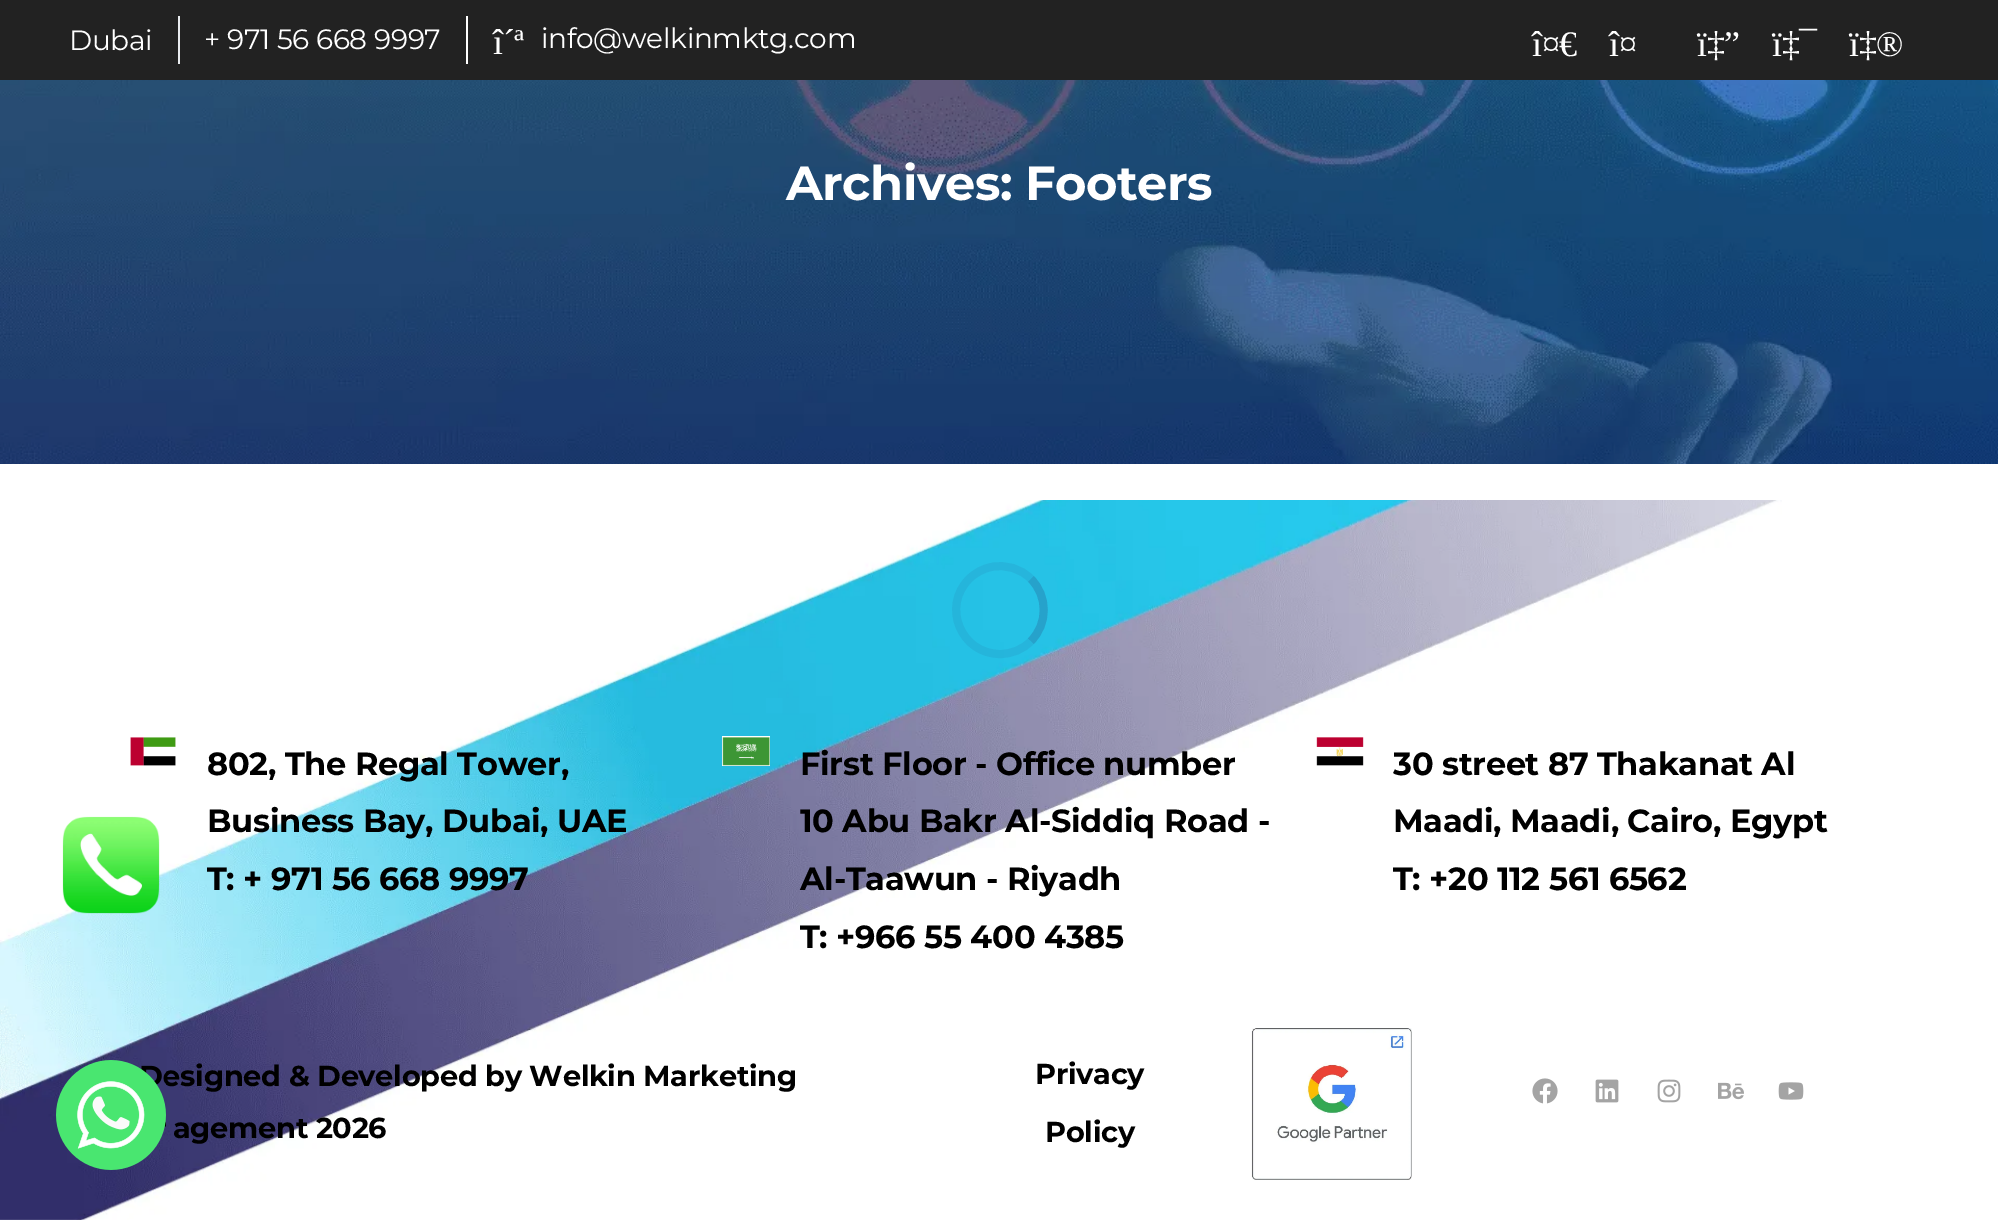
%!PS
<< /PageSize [1998 1220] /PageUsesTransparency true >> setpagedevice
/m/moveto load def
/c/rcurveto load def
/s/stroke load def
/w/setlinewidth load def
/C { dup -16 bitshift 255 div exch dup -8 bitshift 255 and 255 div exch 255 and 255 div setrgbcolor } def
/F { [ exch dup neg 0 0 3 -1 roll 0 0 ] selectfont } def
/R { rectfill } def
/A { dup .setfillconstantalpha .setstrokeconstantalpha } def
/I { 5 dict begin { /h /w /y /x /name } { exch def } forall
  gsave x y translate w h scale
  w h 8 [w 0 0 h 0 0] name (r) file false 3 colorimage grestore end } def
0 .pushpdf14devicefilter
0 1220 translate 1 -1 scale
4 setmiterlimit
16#FFFFFF C
0 0 1998 1220 R
16#222222 C
0 0 1998 80 R
/Montserrat-Regular 28 F
16#FFFFFF C
69 50 m -.3 0 (Dubai) ashow
16#E9ECEF C
178 16 2 48 R
16#FFFFFF C
204 49 m -.3 0 (+ 971 56 668 9997) ashow
466 16 2 48 R
/LiberationSerif-Regular 36 F
493 54 m -.3 0 (î´ª) ashow
/Montserrat-Regular 28 F
541 48 m -.3 0 (info@welkinmktg.com) ashow
/LiberationSerif-Regular 36 F
1532 56 m -.3 0 (î¤€) ashow
1609 56 m -.3 0 (î¤) ashow
1697 56 m -.3 0 (ï‡”) ashow
1772 56 m -.3 0 (ï‡¯) ashow
1849 56 m -.3 0 (ï‡®) ashow
(1.rgb) 0 80 1998 384 I
/Montserrat-Bold 48 F
786 200 m -.5 0 (Archives: Footers) ashow
(2.rgb) 0 500 1782 720 I
(3.rgb) 130 737 46 29 I
/Montserrat-Bold 32 F
16#000000 C
207 775 m -.3 0 (802, The Regal Tower,) ashow
207 832 m -.3 0 (Business Bay, Dubai, UAE) ashow
207 890 m -.3 0 (T: + 971 56 668 9997) ashow
(4.rgb) 722 736 48 30 I
800 775 m -.3 0 (First Floor - Office number) ashow
800 832 m -.3 0 (10 Abu Bakr Al-Siddiq Road -) ashow
800 890 m -.3 0 (Al-Taawun - Riyadh) ashow
800 948 m -.3 0 (T: +966 55 400 4385) ashow
(5.rgb) 1316 737 48 29 I
1393 775 m -.3 0 (30 street 87 Thakanat Al) ashow
1393 832 m -.3 0 (Maadi, Maadi, Cairo, Egypt) ashow
1393 890 m -.3 0 (T: +20 112 561 6562) ashow
/Montserrat-Bold 28.8 F
139 1086 m -.3 0 (Designed & Developed by Welkin Marketing) ashow
173 1138 m -.3 0 (agement 2026) ashow
1035 1084 m -.3 0 (Privacy) ashow
1045 1142 m -.3 0 (Policy) ashow
(6.rgb) 1251 1028 161 152 I
(7.rgb) 1532 1078 26 26 I
(8.rgb) 1595 1079 24 24 I
(9.rgb) 1657 1079 24 24 I
(10.rgb) 1718 1082 26 18 I
(11.rgb) 1778 1082 26 18 I
16#26A2CB C
8 w
1031 579 m 17 17 17 45 0 62 c s
0.08 A
16#262261 C
1031 641 m -8 8.5 -19.5 13 -31 13 c -39 0 -58.5 -47.5 -31 -75 c 6 -6 14 -10.5 22.5 -12 c 14 -3 29.5 1.5 39.5 12 c s
1 A
(12.rgb) 62 816 98 98 I
(13.rgb) 56 1060 110 110 I
.poppdf14devicefilter showpage
